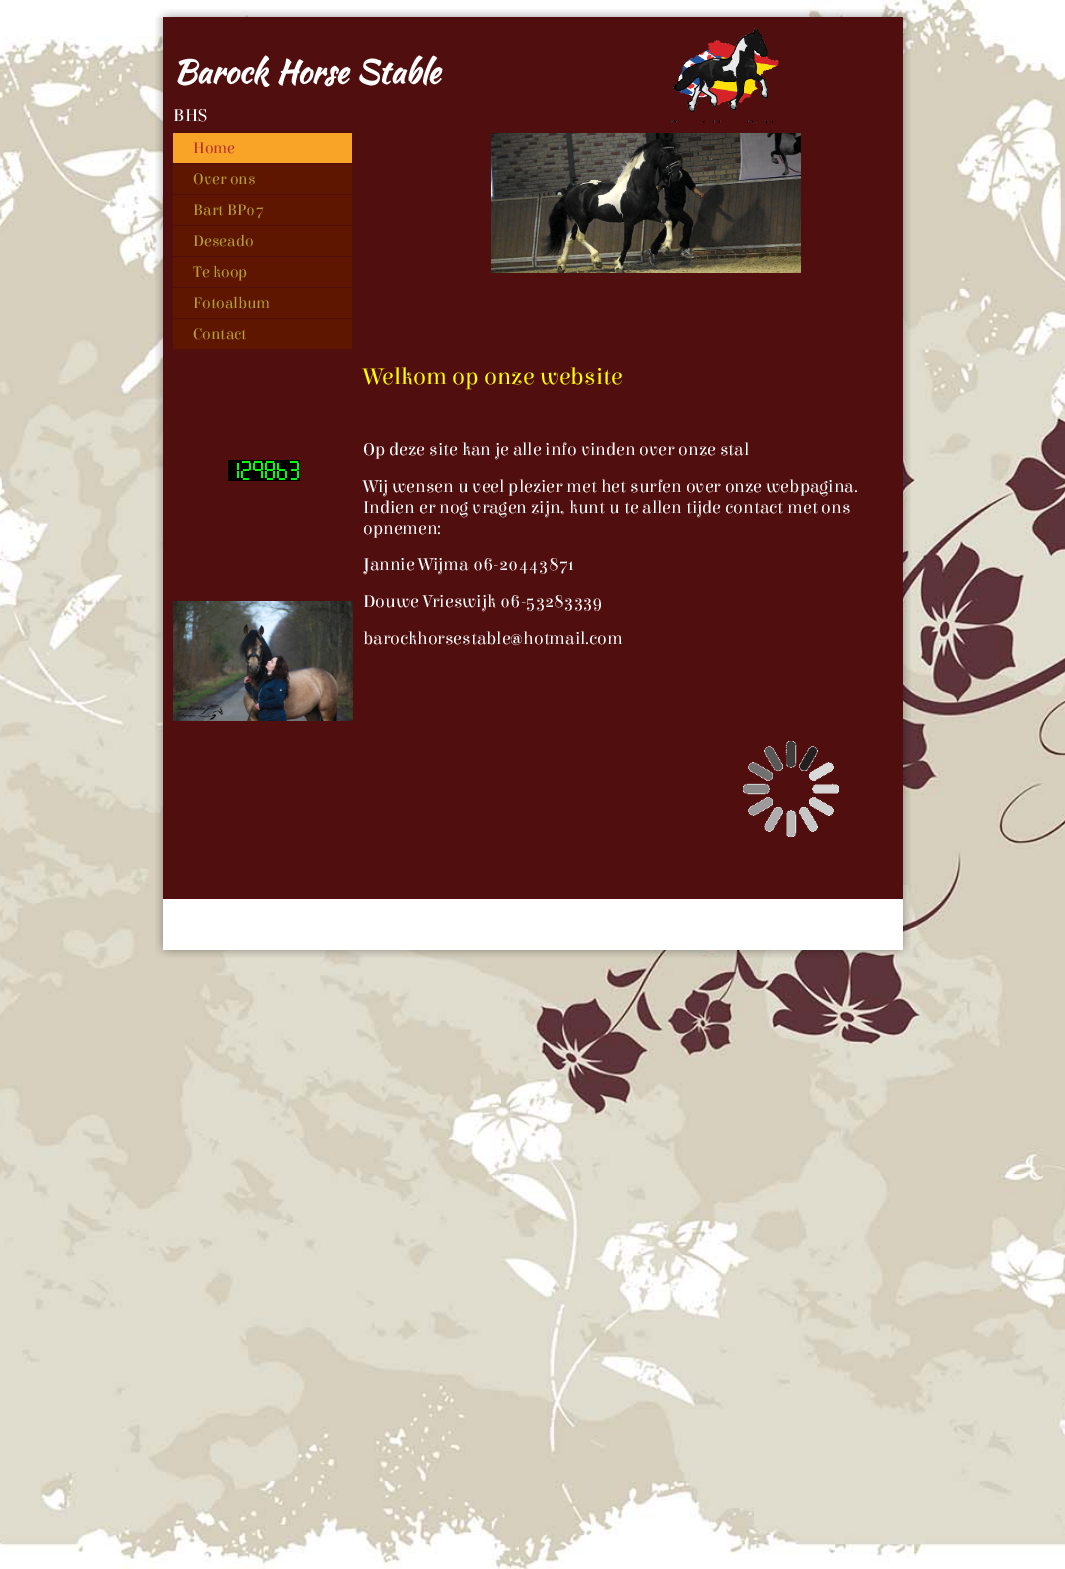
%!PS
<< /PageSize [1065 1569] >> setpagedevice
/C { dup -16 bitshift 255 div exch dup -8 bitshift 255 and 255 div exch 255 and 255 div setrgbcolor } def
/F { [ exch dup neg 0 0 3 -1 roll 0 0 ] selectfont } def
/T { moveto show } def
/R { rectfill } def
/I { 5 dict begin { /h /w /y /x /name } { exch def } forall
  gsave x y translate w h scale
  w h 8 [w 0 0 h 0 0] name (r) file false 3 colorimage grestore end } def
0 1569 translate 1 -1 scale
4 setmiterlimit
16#FFFFFF C
0 0 1065 1569 R
(1.rgb) 0 0 1065 1569 I
(2.rgb) 156 9 754 9 I
(3.rgb) 155 18 756 919 I
16#510E0E C
163 17 740 882 R
/KaushanScript-Bold 32 F
16#FFFFFF C
(Barock Horse Stable) 173 83 T
/Elsie-Regular 18 F
(BHS) 173 121 T
(4.rgb) 670 28 109 95 I
16#F9A427 C
173 133 179 30 R
/Elsie-Regular 16 F
16#B33232 C
(Home) 193 153 T
16#5F1600 C
173 164 179 30 R
16#B49E35 C
(Over ons) 193 184 T
16#5F1600 C
173 195 179 30 R
16#B49E35 C
(Bart BP07) 193 215 T
16#5F1600 C
173 226 179 30 R
16#B49E35 C
(Deseado) 193 246 T
16#5F1600 C
173 257 179 30 R
16#B49E35 C
(Te koop) 193 277 T
16#5F1600 C
173 288 179 30 R
16#B49E35 C
(Fotoalbum) 193 308 T
16#5F1600 C
173 319 179 30 R
16#B49E35 C
(Contact) 193 339 T
(5.rgb) 228 460 72 21 I
(6.rgb) 173 601 180 120 I
(7.rgb) 491 133 310 140 I
/Elsie-Regular 24 F
16#FFFF00 C
(Welkom op onze website) 363 384 T
/Elsie-Regular 18 F
16#FFFFFF C
(Op deze site kan je alle info vinden over onze stal) 363 455 T
(Wij wensen u veel plezier met het surfen over onze webpagina.) 363 492 T
(Indien er nog vragen zijn, kunt u te allen tijde contact met ons) 363 513 T
(opnemen:) 363 534 T
(Jannie Wijma 06-20443871) 363 570 T
(Douwe Vrieswijk 06-53283339) 363 607 T
(barockhorsestable@hotmail.com) 363 644 T
(8.rgb) 743 741 96 96 I
(9.rgb) 155 937 756 21 I
163 937 740 13 R
showpage
